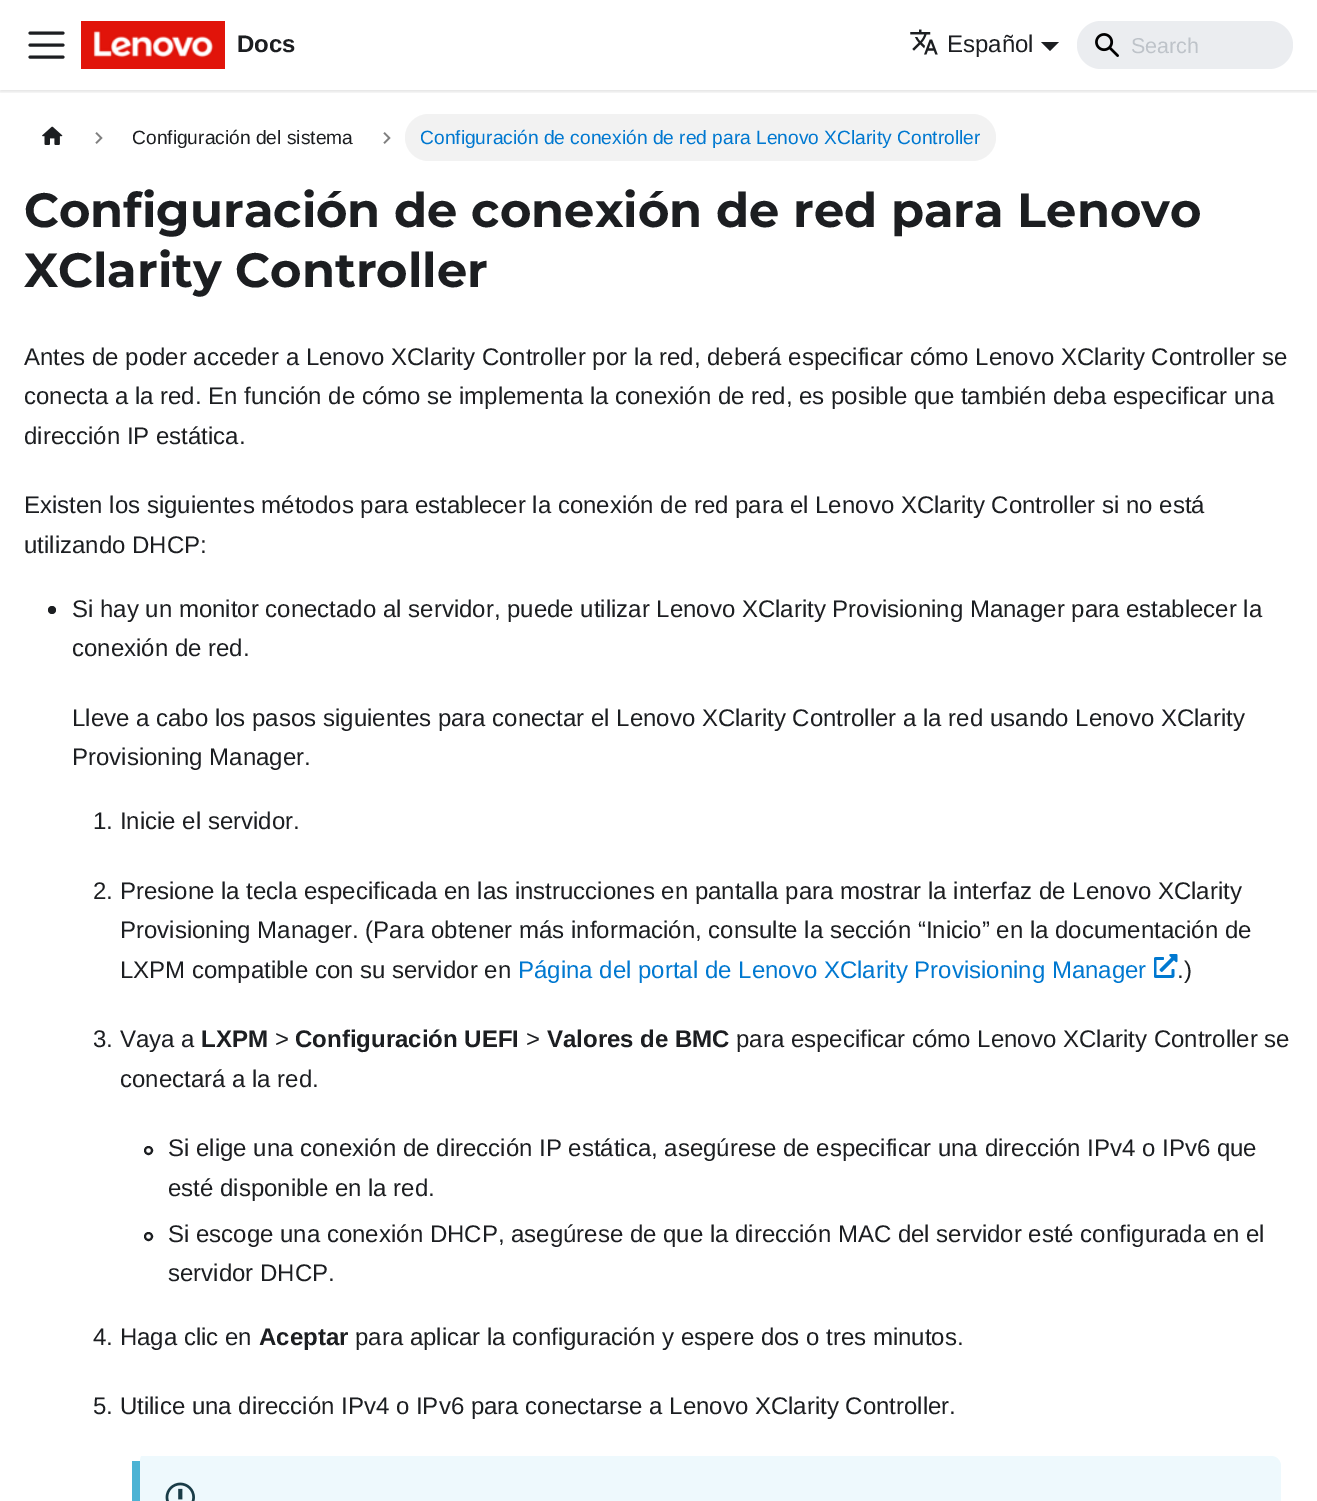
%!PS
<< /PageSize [1317 1501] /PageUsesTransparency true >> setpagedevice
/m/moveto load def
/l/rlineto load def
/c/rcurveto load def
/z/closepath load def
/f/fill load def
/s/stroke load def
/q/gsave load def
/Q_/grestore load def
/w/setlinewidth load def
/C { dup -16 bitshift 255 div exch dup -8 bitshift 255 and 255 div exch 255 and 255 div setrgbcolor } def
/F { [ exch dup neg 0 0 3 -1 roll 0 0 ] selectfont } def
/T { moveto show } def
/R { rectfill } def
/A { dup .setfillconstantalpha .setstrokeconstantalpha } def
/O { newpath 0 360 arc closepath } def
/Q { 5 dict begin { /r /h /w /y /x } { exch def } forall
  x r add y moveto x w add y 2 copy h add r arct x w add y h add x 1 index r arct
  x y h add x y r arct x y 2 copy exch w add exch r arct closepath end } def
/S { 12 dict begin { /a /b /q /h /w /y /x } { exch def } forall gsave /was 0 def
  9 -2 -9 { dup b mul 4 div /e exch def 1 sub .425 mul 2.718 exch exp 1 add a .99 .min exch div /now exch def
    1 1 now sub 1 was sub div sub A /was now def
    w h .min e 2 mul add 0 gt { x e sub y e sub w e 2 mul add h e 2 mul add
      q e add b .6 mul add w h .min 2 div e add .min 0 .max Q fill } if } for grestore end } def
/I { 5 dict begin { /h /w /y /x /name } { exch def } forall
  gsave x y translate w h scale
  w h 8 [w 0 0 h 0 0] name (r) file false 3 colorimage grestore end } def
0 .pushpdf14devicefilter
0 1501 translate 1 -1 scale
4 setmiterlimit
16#FFFFFF C
0 0 1317 1501 R
q
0 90 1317 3 rectclip
16#000000 C
0 2 1317 90 0 1.5 .1 S
Q_
16#1C1E21 C
3 w
1 setlinecap
30 33 m 33 0 l 30 45 m 33 0 l 30 57 m 33 0 l s
(1.rgb) 81 21 144 48 I
/LiberationSans-Bold 24 F
(Docs) 237 52 T
(2.rgb) 910 29 28 26 I
/LiberationSans-Regular 24 F
(Español) 947 52 T
1041 42 m 18 0 l -9 9 l z f
16#EBEDF0 C
1077 21 216 48 24 Q f
(3.rgb) 1095 33 24 24 I
/LiberationSans-Regular 21.5 F
16#BEC3C9 C
(Search) 1131 53 T
(4.rgb) 42 126 21 19 I
(5.rgb) 95 132 8 12 I
/LiberationSans-Regular 19.2 F
16#1C1E21 C
(Configuración del sistema) 132 144 T
(5.rgb) 383 132 8 12 I
16#F2F2F2 C
405 114 591 47 23.5 Q f
16#0078D0 C
(Configuración de conexión de red para Lenovo XClarity Controller) 420 144 T
/Montserrat-Bold 48 F
16#1C1E21 C
(Configuración de conexión de red para Lenovo) 24 227 T
(XClarity Controller) 24 287 T
/LiberationSans-Regular 24 F
(Antes de poder acceder a Lenovo XClarity Controller por la red, deberá especificar cómo Lenovo XClarity Controller se) 24 365 T
(conecta a la red. En función de cómo se implementa la conexión de red, es posible que también deba especificar una) 24 404 T
(dirección IP estática.) 24 444 T
(Existen los siguientes métodos para establecer la conexión de red para el Lenovo XClarity Controller si no está) 24 513 T
(utilizando DHCP:) 24 553 T
52 610 4 O f
(Si hay un monitor conectado al servidor, puede utilizar Lenovo XClarity Provisioning Manager para establecer la) 72 617 T
(conexión de red.) 72 656 T
(Lleve a cabo los pasos siguientes para conectar el Lenovo XClarity Controller a la red usando Lenovo XClarity) 72 726 T
(Provisioning Manager.) 72 765 T
(1. Inicie el servidor.) 93 829 T
(2. Presione la tecla especificada en las instrucciones en pantalla para mostrar la interfaz de Lenovo XClarity) 93 899 T
(Provisioning Manager. \(Para obtener más información, consulte la sección “Inicio” en la documentación de) 120 938 T
(LXPM compatible con su servidor en) 120 978 T
16#0078D0 C
(Página del portal de Lenovo XClarity Provisioning Manager) 518 978 T
(6.rgb) 1154 954 24 24 I
16#1C1E21 C
(.\)) 1177 978 T
/LiberationSans-Bold 24 F
(LXPM) 201 1047 T
/LiberationSans-Regular 24 F
(>) 275 1047 T
/LiberationSans-Bold 24 F
(Configuración UEFI) 295 1047 T
/LiberationSans-Regular 24 F
(>) 526 1047 T
/LiberationSans-Bold 24 F
(Valores de BMC) 547 1047 T
/LiberationSans-Regular 24 F
(para especificar cómo Lenovo XClarity Controller se) 736 1047 T
(conectará a la red.) 120 1087 T
(3. Vaya a) 93 1047 T
2 w
0 setlinecap
148.5 1150.5 3.5 O s
(Si elige una conexión de dirección IP estática, asegúrese de especificar una dirección IPv4 o IPv6 que) 168 1156 T
(esté disponible en la red.) 168 1196 T
148.5 1236.5 3.5 O s
(Si escoge una conexión DHCP, asegúrese de que la dirección MAC del servidor esté configurada en el) 168 1242 T
(servidor DHCP.) 168 1281 T
(4. Haga clic en) 93 1345 T
/LiberationSans-Bold 24 F
(Aceptar) 259 1345 T
/LiberationSans-Regular 24 F
(para aplicar la configuración y espere dos o tres minutos.) 355 1345 T
(5. Utilice una dirección IPv4 o IPv6 para conectarse a Lenovo XClarity Controller.) 93 1414 T
16#EEF9FD C
142 1456 m 1129 0 l 6 0 10 5 10 10 c 0 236 l 0 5 -4 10 -10 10 c -1129 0 l -2 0 -2 -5 -2 -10 c 0 -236 l 0 -5 0 -10 2 -10 c z f
16#4CB3D4 C
132 1461 8 40 R
(7.rgb) 165 1482 30 19 I
.poppdf14devicefilter showpage
